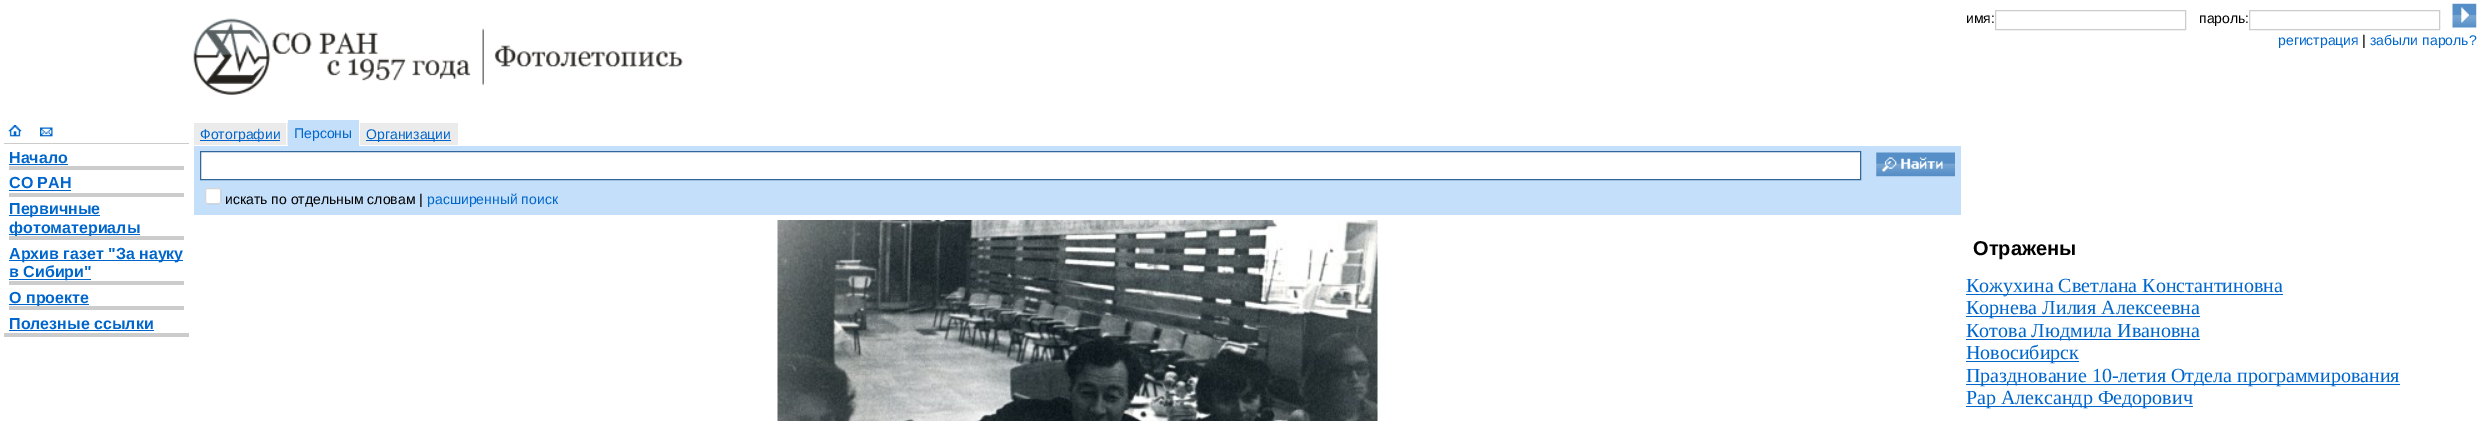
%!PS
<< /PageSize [2479 421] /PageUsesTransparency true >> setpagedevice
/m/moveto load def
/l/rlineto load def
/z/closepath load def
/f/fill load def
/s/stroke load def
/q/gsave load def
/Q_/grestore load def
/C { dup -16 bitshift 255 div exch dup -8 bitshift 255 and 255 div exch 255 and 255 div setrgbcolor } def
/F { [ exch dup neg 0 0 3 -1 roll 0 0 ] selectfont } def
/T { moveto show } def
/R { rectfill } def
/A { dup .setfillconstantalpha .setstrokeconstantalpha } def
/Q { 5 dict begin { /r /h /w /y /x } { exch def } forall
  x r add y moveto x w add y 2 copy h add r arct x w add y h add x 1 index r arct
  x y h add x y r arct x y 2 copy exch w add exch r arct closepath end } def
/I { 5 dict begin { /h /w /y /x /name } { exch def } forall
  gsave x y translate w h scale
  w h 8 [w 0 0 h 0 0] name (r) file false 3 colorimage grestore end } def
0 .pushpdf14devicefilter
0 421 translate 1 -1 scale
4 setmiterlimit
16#FFFFFF C
0 0 2479 421 R
(1.rgb) 193 18 490 77 I
/LiberationSans-Regular 14 F
16#000000 C
(имя:) 1966 23 T
16#CCCCCC C
1995.5 10.5 190 19 rectstroke
16#000000 C
(пароль:) 2199 23 T
16#CCCCCC C
2249.5 10.5 190 19 rectstroke
(2.rgb) 2452 3 25 25 I
16#0066CC C
(регистрация) 2278 45 T
16#000000 C
(|) 2362 45 T
16#0066CC C
(забыли пароль?) 2370 45 T
(3.rgb) 8 125 14 12 I
(4.rgb) 40 127 13 10 I
16#CCCCCC C
4 143 185 1 R
/LiberationSans-Bold 16 F
16#0066CC C
(Начало) 9 163 T
9 164 59 1 R
16#CCCCCC C
9 166 175 4 R
16#0066CC C
(СО РАН) 9 188 T
9 190 62 1 R
16#CCCCCC C
9 193 175 4 R
16#0066CC C
9 215 91 1 R
(Первичные) 9 214 T
9 234 131 1 R
(фотоматериалы) 9 233 T
16#CCCCCC C
9 236 175 4 R
16#0066CC C
9 260 174 1 R
(Архив газет "За науку) 9 259 T
9 279 82 1 R
(в Сибири") 9 277 T
16#CCCCCC C
9 281 175 4 R
16#0066CC C
9 304 80 1 R
(О проекте) 9 303 T
16#CCCCCC C
9 306 175 4 R
16#0066CC C
(Полезные ссылки) 9 329 T
9 330 145 1 R
16#CCCCCC C
4 333 185 4 R
16#EBEBEB C
194 123 94 22 R
16#FFFFFF C
286 120 1 26 R
16#0066CC C
200 140 80 1 R
/LiberationSans-Regular 14 F
(Фотографии) 200 139 T
16#C4DFFA C
288 120 71 26 R
16#0066CC C
(Персоны) 294 138 T
16#EBEBEB C
360 123 98 22 R
16#0066CC C
366 140 85 1 R
(Организации) 366 139 T
16#C4DFFA C
194 146 1767 69 R
16#FFFFFF C
200.5 151.5 m 1660 0 l 0 28 l -1660 0 l z q f Q_
16#336699 C
s
(5.rgb) 1876 152 79 25 I
16#FFFFFF C
205 188 16 16 2.5 Q f
0.3 A
16#767676 C
205.5 188.5 15 15 2 Q s
1 A
16#000000 C
(искать по отдельным словам |) 225 204 T
16#0066CC C
(расширенный поиск) 427 204 T
(6.rgb) 777 220 601 201 I
/LiberationSans-Bold 20 F
16#000000 C
(Отражены) 1973 255 T
16#0066CC C
1966 294 317 1 R
/LiberationSerif-Regular 20 F
(Кожухина Светлана Константиновна) 1966 292 T
1966 316 234 1 R
(Корнева Лилия Алексеевна) 1966 314 T
1966 339 234 1 R
(Котова Людмила Ивановна) 1966 337 T
1966 361 113 1 R
(Новосибирск) 1966 359 T
1966 384 434 1 R
(Празднование 10-летия Отдела программирования) 1966 382 T
1966 406 227 1 R
(Рар Александр Федорович) 1966 404 T
.poppdf14devicefilter showpage
